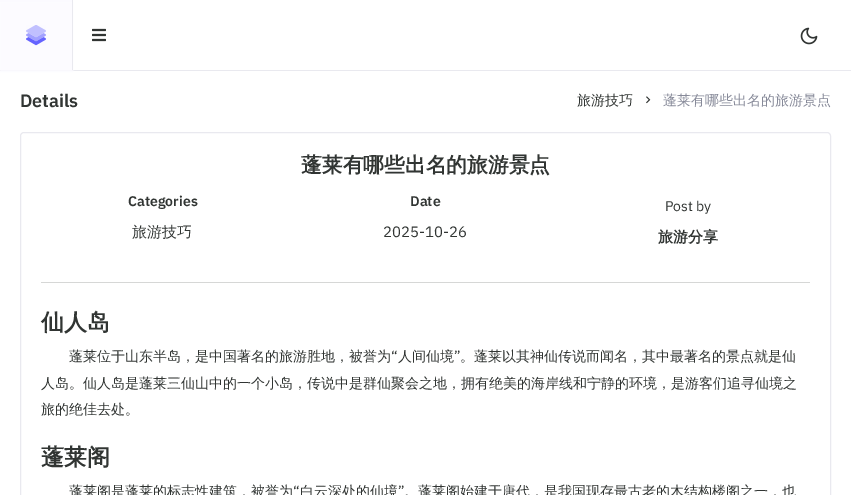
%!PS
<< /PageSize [851 495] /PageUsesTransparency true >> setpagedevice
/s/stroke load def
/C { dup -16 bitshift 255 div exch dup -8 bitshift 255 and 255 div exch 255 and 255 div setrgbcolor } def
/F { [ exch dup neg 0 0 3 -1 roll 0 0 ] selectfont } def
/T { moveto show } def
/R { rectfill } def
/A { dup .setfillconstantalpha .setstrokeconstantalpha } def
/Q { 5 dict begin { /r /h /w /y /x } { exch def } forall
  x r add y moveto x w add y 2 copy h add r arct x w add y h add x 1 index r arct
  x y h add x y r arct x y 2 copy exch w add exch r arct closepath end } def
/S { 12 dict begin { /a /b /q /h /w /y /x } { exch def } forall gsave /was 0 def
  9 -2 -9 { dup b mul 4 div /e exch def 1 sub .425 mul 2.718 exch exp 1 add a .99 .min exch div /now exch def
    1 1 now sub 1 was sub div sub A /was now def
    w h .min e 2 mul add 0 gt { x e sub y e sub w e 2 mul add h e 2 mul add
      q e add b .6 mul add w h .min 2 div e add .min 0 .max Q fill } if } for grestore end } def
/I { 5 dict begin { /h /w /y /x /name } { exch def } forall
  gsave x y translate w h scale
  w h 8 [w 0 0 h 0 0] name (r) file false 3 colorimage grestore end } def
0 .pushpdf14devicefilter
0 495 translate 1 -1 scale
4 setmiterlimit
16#FFFFFF C
0 0 851 495 R
16#E9E9EF C
0 70 851 1 R
16#FBFAFF C
0 2 73 70 0 1 1 S
0 0 72 2 R
16#E9E9EF C
72 0 1 70 R
(1.rgb) 26 25 20 21 I
(2.rgb) 92 28 14 14 I
(3.rgb) 800 27 18 18 I
/IBMPlexSans-SemiBold 18 F
16#313533 C
(Details) 20 107 T
/WenQuanYiZenHei-Medium 14 F
(旅游技巧) 577 105 T
(4.rgb) 646 96 5 8 I
16#878A99 C
(蓬莱有哪些出名的旅游景点) 663 105 T
16#E9E9EF C
20.5 132.5 810 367 3.5 Q s
/WenQuanYiZenHei-Bold 20.75 F
16#313533 C
(蓬莱有哪些出名的旅游景点) 301 172 T
/IBMPlexSans-SemiBold 14 F
(Categories) 128 206 T
/WenQuanYiZenHei-Medium 15 F
(旅游技巧) 132 237 T
/IBMPlexSans-SemiBold 14 F
(Date) 410 206 T
/IBMPlexSans-Regular 15 F
(2025-10-26) 383 237 T
/IBMPlexSans-Regular 14 F
(Post by) 665 211 T
/WenQuanYiZenHei-Bold 15 F
(旅游分享) 658 242 T
16#D6D7D6 C
41 282 769 1 R
/WenQuanYiZenHei-Bold 23 F
16#313533 C
(仙人岛) 41 330 T
/WenQuanYiZenHei-Medium 14 F
(蓬莱位于山东半岛，是中国著名的旅游胜地，被誉为) 69 361 T
/IBMPlexSans-Regular 14 F
(“) 391 361 T
/WenQuanYiZenHei-Medium 14 F
(人间仙境) 398 361 T
/IBMPlexSans-Regular 14 F
(”) 454 361 T
/WenQuanYiZenHei-Medium 14 F
(。蓬莱以其神仙传说而闻名，其中最著名的景点就是仙) 460 361 T
(人岛。仙人岛是蓬莱三仙山中的一个小岛，传说中是群仙聚会之地，拥有绝美的海岸线和宁静的环境，是游客们追寻仙境之) 41 388 T
(旅的绝佳去处。) 41 414 T
/WenQuanYiZenHei-Bold 23 F
(蓬莱阁) 41 465 T
/WenQuanYiZenHei-Medium 14 F
(蓬莱阁是蓬莱的标志性建筑，被誉为) 69 496 T
/IBMPlexSans-Regular 14 F
(“) 293 496 T
/WenQuanYiZenHei-Medium 14 F
(白云深处的仙境) 300 496 T
/IBMPlexSans-Regular 14 F
(”) 398 496 T
/WenQuanYiZenHei-Medium 14 F
(。蓬莱阁始建于唐代，是我国现存最古老的木结构楼阁之一，也) 404 496 T
.poppdf14devicefilter showpage
